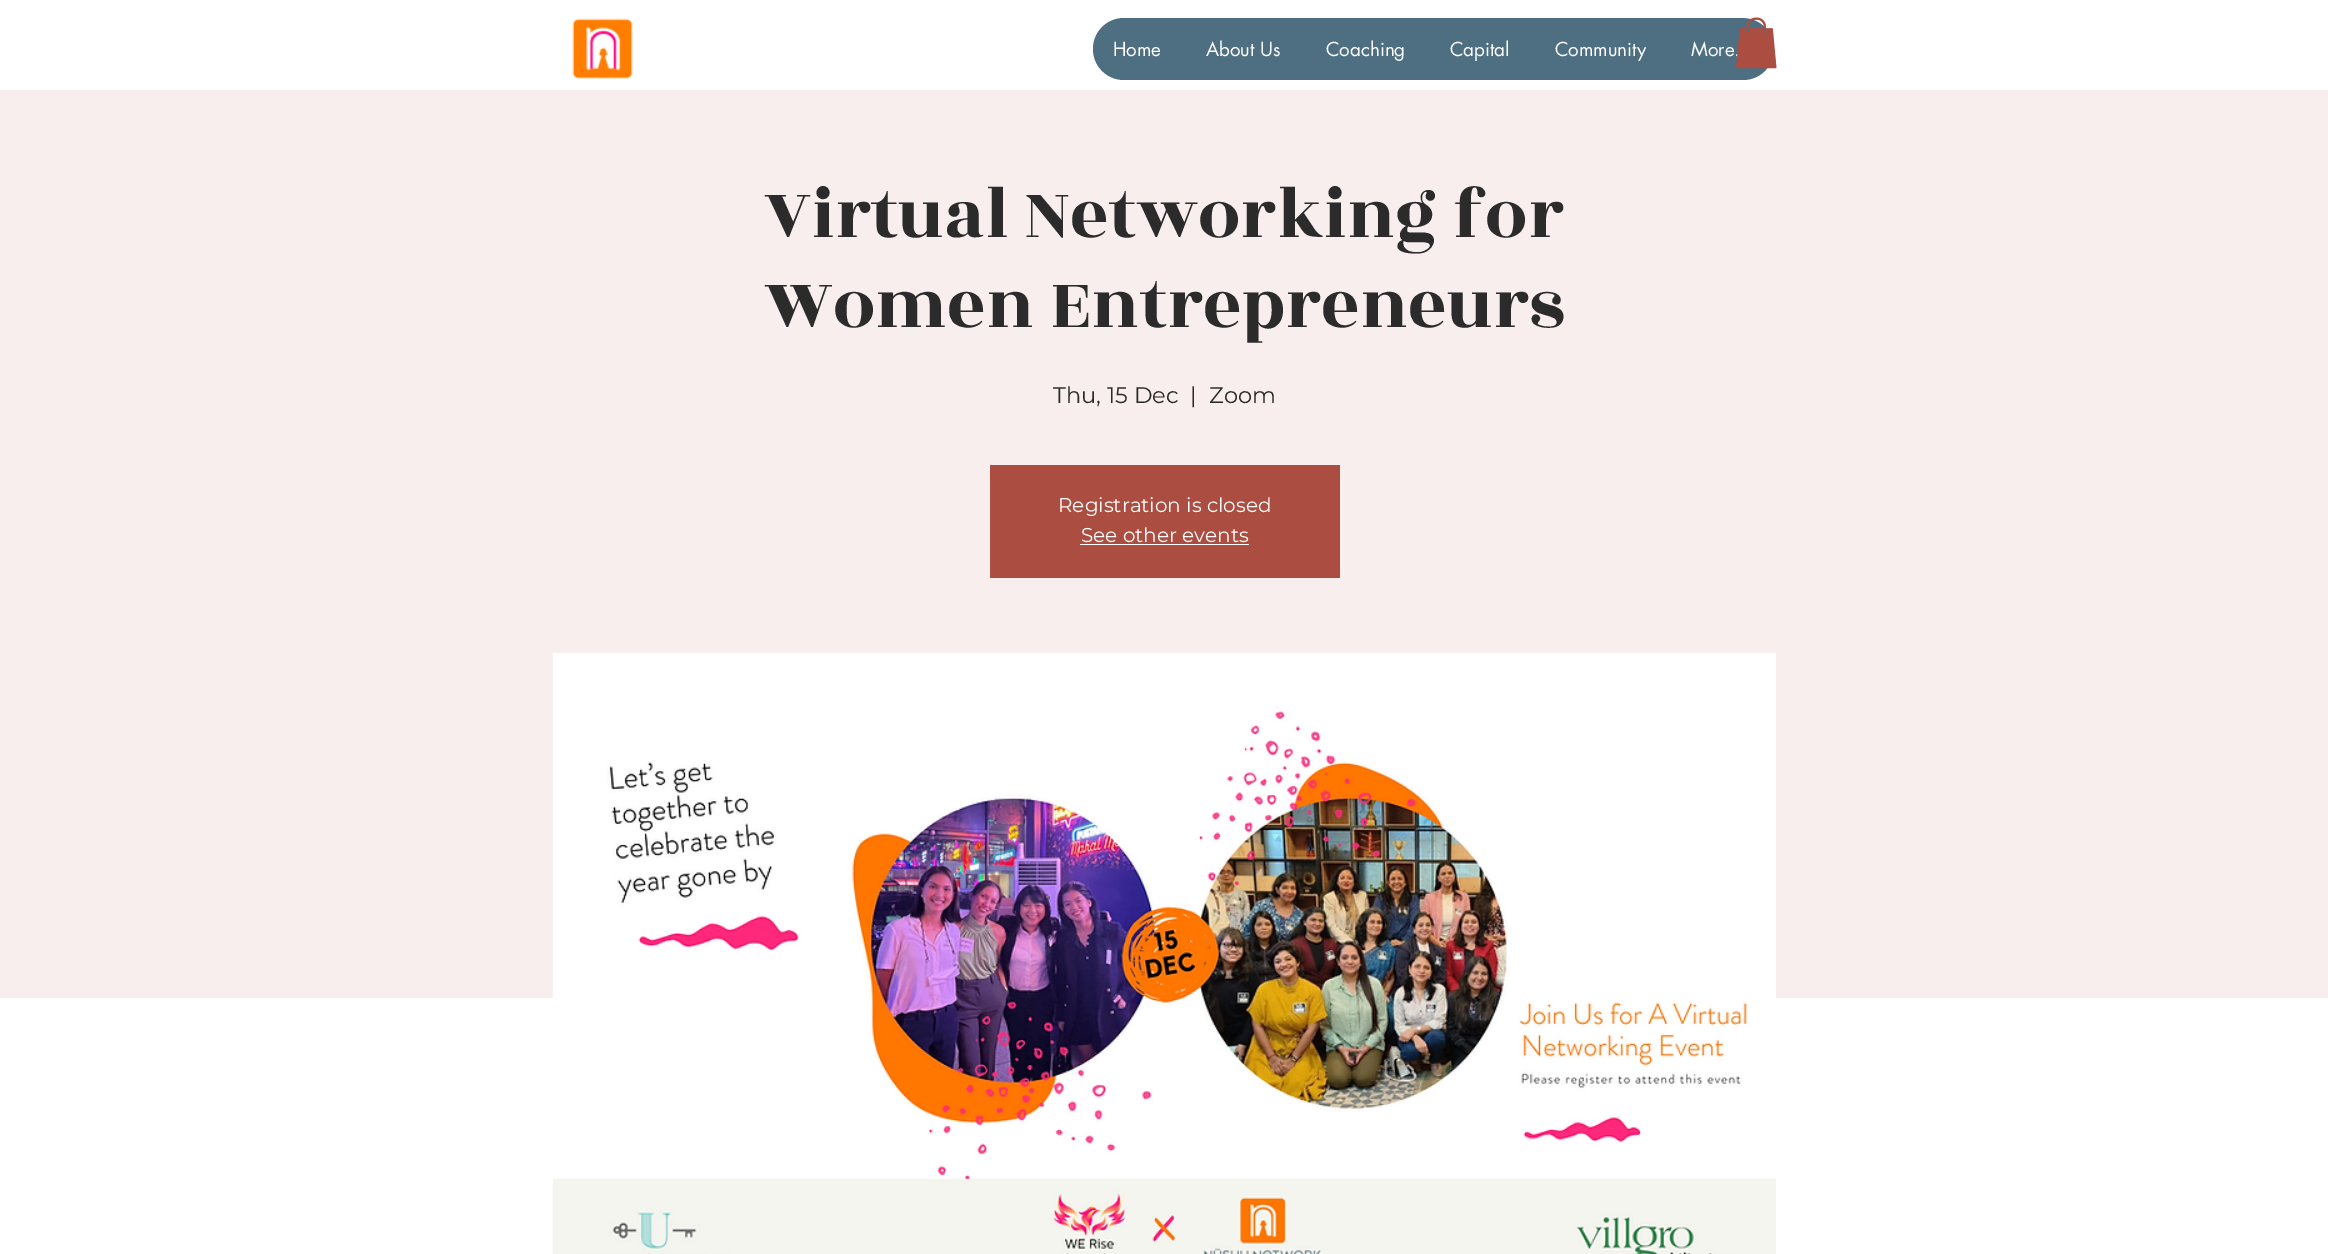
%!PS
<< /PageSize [2328 1254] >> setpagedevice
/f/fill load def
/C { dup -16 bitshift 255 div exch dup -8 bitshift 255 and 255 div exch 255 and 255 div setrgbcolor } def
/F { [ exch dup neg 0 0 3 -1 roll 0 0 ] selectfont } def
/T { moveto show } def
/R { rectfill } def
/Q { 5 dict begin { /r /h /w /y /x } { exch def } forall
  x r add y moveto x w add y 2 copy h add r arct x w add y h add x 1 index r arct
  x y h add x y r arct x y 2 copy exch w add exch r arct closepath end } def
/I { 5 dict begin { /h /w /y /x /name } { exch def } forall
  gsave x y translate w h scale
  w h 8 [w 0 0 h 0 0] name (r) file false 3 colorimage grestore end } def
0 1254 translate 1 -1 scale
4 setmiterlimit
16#FFFFFF C
0 0 2328 1254 R
(1.rgb) 572 18 61 61 I
16#4D6F81 C
1093 18 681 62 31 Q f
/futura-Regular 18.75 F
16#FFFFFF C
(Home) 1113 56 T
(About Us) 1206 56 T
(Coaching) 1326 56 T
(Capital) 1450 56 T
(Community) 1555 56 T
(More) 1691 56 T
(2.rgb) 1736 17 41 52 I
16#F7EEED C
0 90 2328 908 R
/RozhaOne-Regular 75 F
16#2B2B2B C
(Virtual Networking for) 764 237 T
(Women Entrepreneurs) 764 327 T
/Montserrat-Regular 22.5 F
(Thu, 15 Dec) 1053 403 T
(|) 1190 403 T
(Zoom) 1209 403 T
16#AB4D40 C
990 465 350 113 R
/Montserrat-Regular 20 F
16#FFFFFF C
(Registration is closed) 1058 512 T
(See other events) 1081 542 T
1080 544 169 1 R
(3.rgb) 552 652 1224 602 I
showpage
